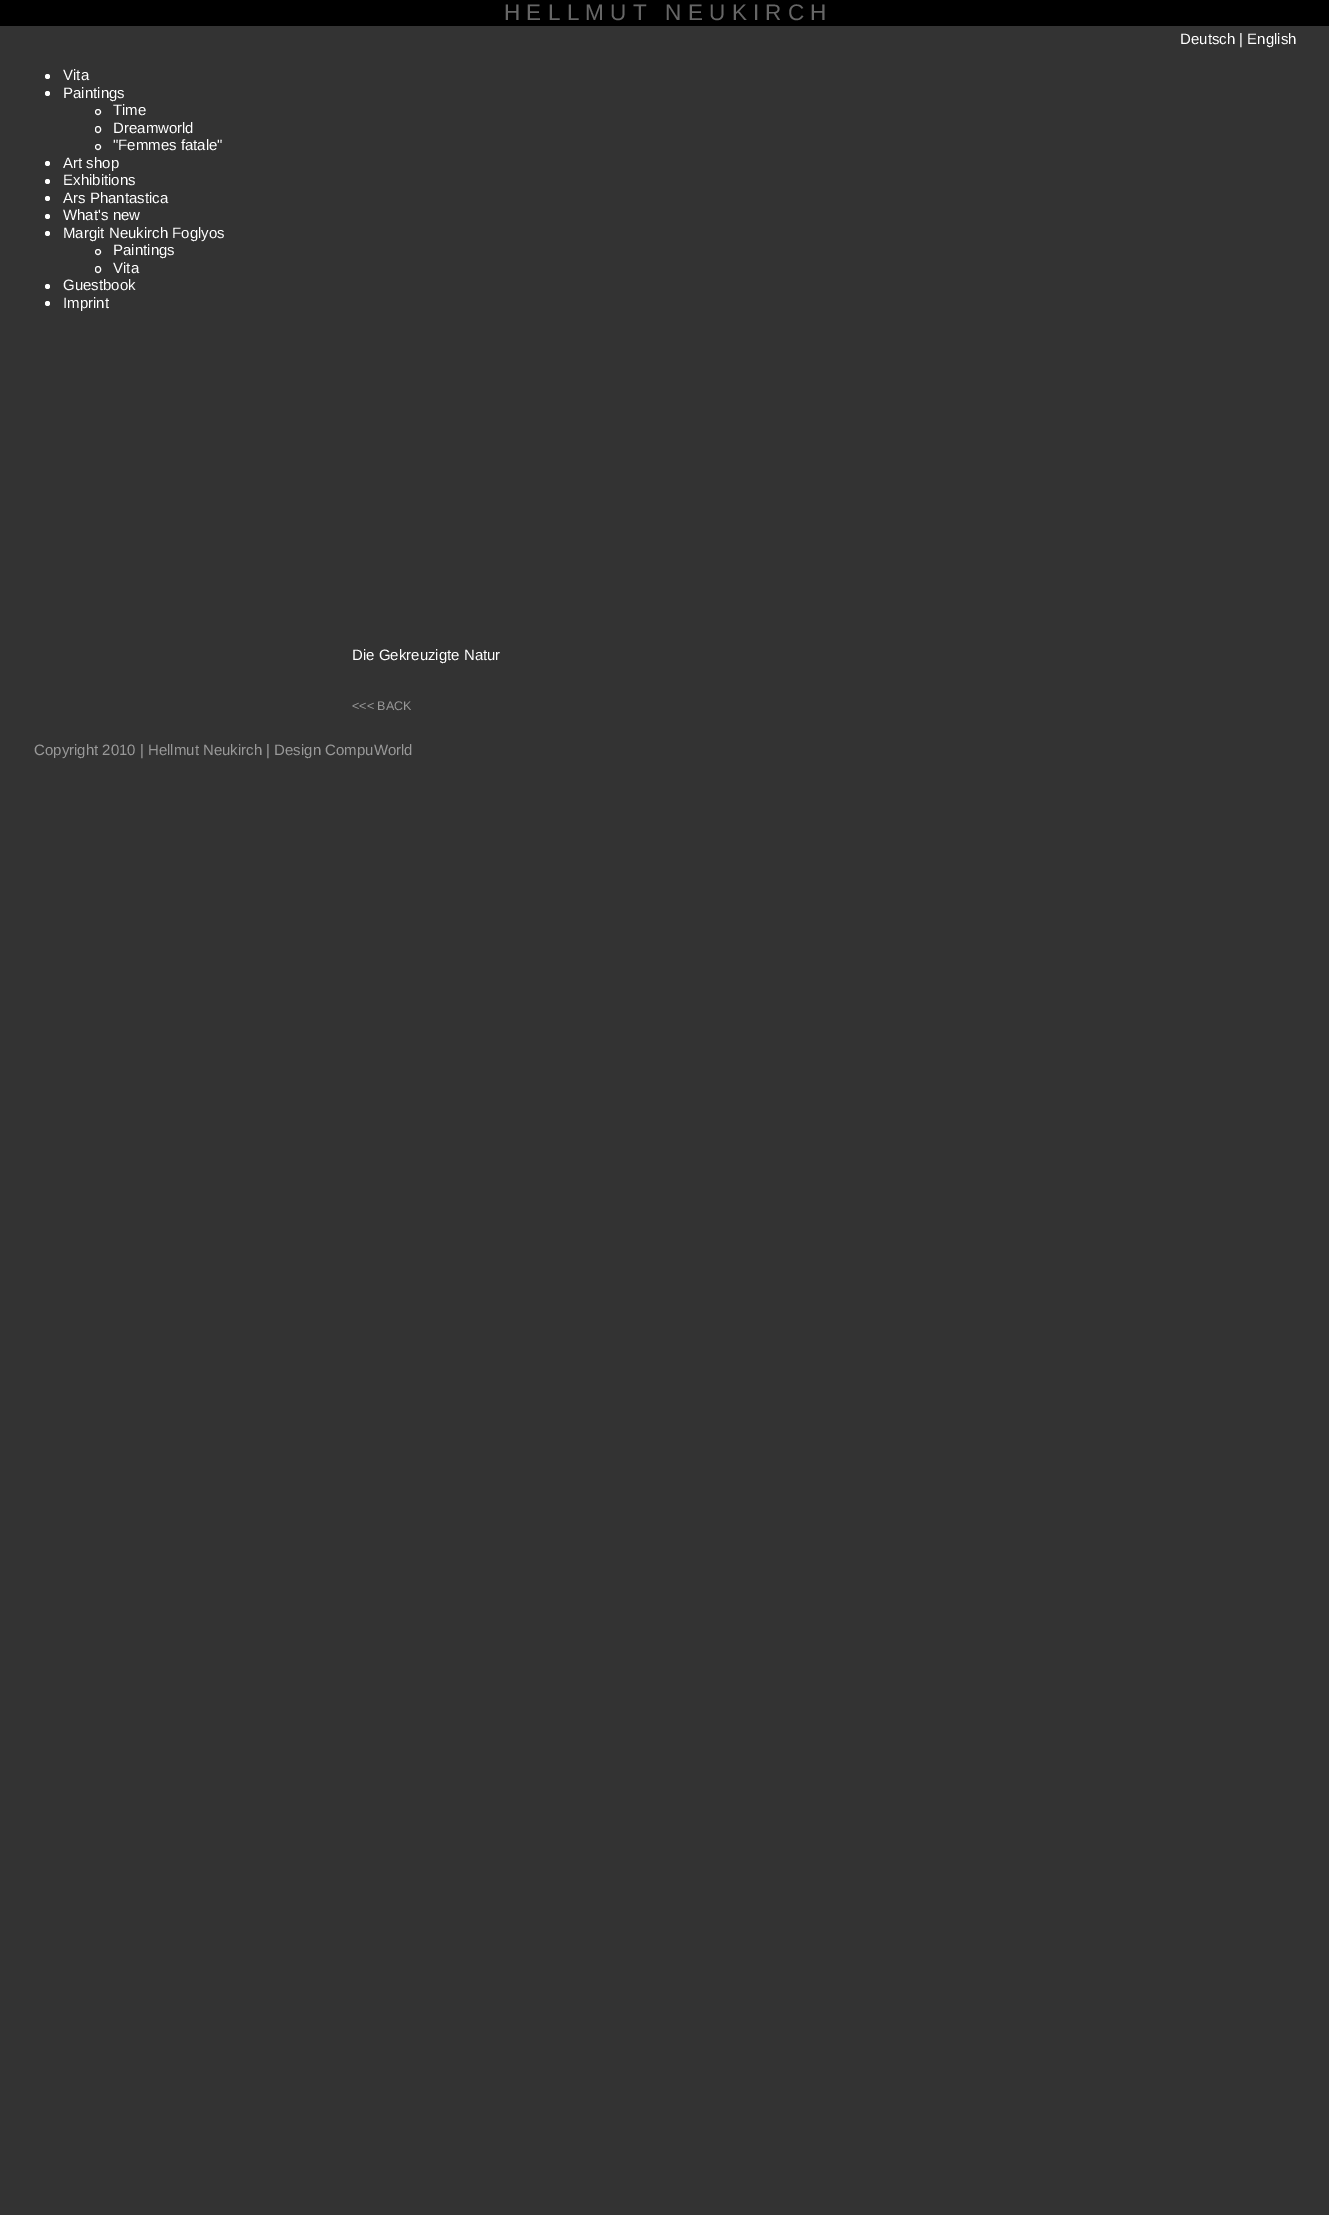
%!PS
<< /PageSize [1329 2215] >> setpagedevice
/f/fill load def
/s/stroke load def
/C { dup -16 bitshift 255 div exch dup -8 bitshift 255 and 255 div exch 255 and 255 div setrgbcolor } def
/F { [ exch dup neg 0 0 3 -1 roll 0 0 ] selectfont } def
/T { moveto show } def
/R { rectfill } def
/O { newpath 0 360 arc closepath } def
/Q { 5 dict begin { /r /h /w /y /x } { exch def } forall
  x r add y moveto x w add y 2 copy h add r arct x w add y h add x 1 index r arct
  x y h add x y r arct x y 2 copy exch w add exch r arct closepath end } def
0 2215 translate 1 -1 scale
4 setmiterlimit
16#333333 C
0 0 1329 2215 R
16#000000 C
0 0 1329 26 R
/LiberationSans-Regular 22.5 F
16#666666 C
(H E L L M U T   N E U K I R C H) 504 20 T
/LiberationSans-Regular 15 F
16#FFFFFF C
(Deutsch | English) 1180 44 T
47.5 76.5 2.5 O f
(Vita) 63 80 T
47.5 93.5 2.5 O f
(Paintings) 63 98 T
98 112 2.5 O s
(Time) 113 115 T
95.5 126.5 5 6 2.5 Q s
(Dreamworld) 113 133 T
98 147 2.5 O s
("Femmes fatale") 113 150 T
47.5 163.5 2.5 O f
(Art shop) 63 168 T
47.5 181.5 2.5 O f
(Exhibitions) 63 185 T
47.5 198.5 2.5 O f
(Ars Phantastica) 63 203 T
47.5 216.5 2.5 O f
(What's new) 63 220 T
47.5 233.5 2.5 O f
(Margit Neukirch Foglyos) 63 238 T
98 252 2.5 O s
(Paintings) 113 255 T
95.5 266.5 5 6 2.5 Q s
(Vita) 113 273 T
47.5 286.5 2.5 O f
(Guestbook) 63 290 T
47.5 303.5 2.5 O f
(Imprint) 63 308 T
(Die Gekreuzigte Natur) 352 660 T
/LiberationSans-Regular 12.5 F
16#999999 C
(<<< BACK) 352 710 T
/LiberationSans-Regular 15 F
(Copyright 2010 | Hellmut Neukirch | Design CompuWorld) 34 755 T
showpage
